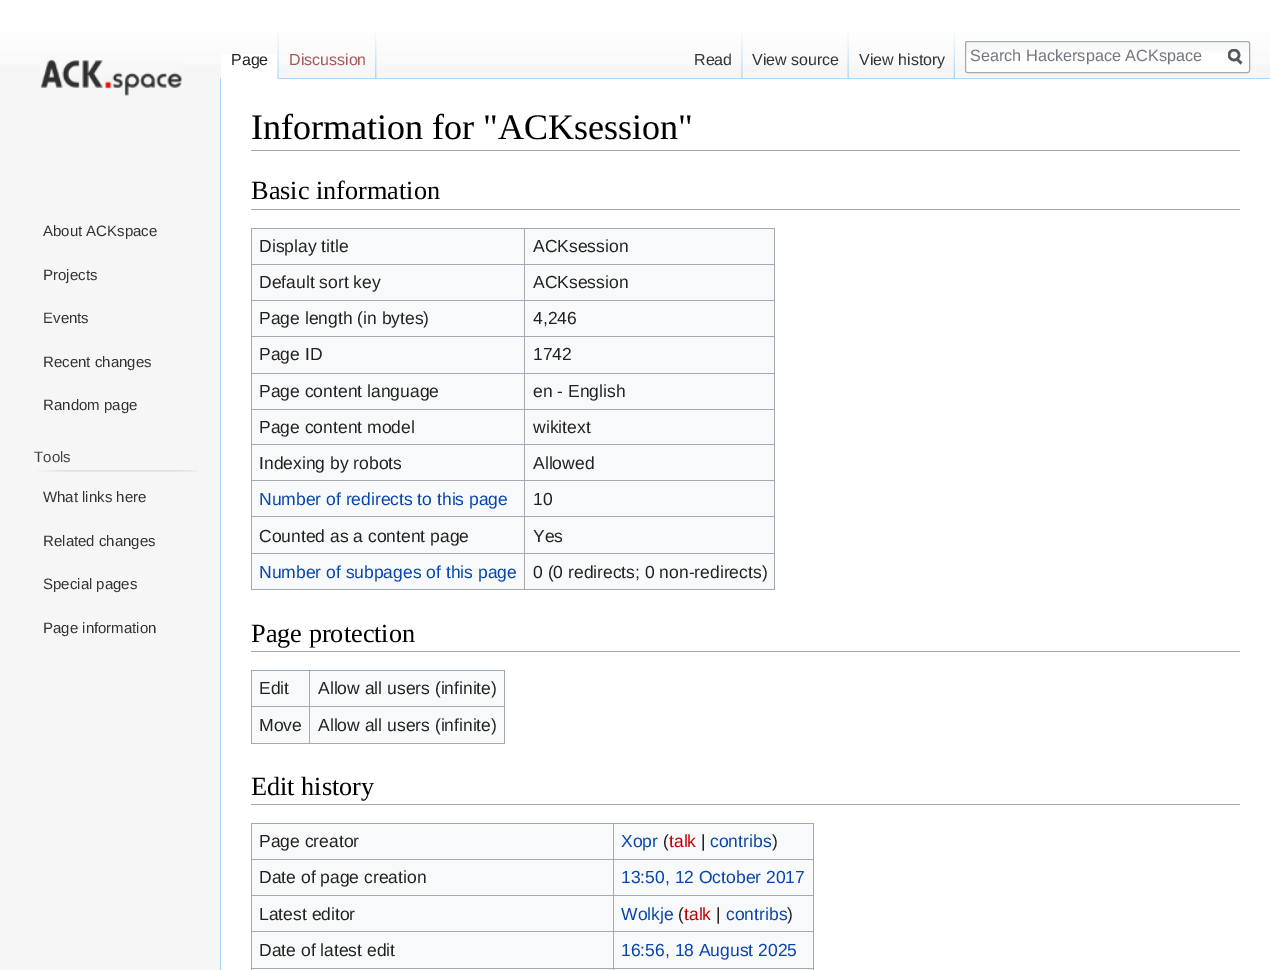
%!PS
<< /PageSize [1270 970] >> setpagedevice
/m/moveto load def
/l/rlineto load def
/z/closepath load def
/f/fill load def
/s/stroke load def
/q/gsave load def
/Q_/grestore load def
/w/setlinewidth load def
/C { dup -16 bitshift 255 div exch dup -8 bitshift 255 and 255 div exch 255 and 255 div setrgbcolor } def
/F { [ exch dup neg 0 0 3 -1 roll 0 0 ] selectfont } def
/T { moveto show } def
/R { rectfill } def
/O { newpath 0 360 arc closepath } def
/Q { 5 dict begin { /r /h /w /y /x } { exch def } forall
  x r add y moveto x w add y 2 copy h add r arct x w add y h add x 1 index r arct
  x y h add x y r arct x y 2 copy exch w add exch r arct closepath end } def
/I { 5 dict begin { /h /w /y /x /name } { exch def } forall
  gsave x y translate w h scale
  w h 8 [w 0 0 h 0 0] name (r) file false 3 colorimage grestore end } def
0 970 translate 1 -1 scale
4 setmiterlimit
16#F6F6F6 C
0 0 1270 970 R
q 0 0 m 1270 0 l 0 65 l -1270 0 l z clip newpath
<< /ShadingType 2 /ColorSpace /DeviceRGB /Coords [635 -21 635 79] /Extend [true true] /Function << /FunctionType 3 /Domain [0 1] /Functions [<< /FunctionType 2 /Domain [0 1] /C0 [1 1 1] /C1 [1 1 1] /N 1 >> << /FunctionType 2 /Domain [0 1] /C0 [1 1 1] /C1 [.965 .965 .965] /N 1 >>] /Bounds [.5] /Encode [0 1 0 1] >> >> shfill Q_
(1.rgb) 375 29 2 49 I
16#FFFFFF C
221 54 58 25 R
(2.rgb) 277 31 2 48 I
/LiberationSans-Regular 16 F
16#222222 C
(Page) 231 65 T
(3.rgb) 376 41 1 37 I
16#A55858 C
(Discussion) 289 65 T
(4.rgb) 953 29 2 49 I
(5.rgb) 741 31 2 47 I
16#333333 C
(Read) 694 65 T
(6.rgb) 847 31 2 47 I
(View source) 752 65 T
(3.rgb) 953 41 1 37 I
(View history) 859 65 T
16#FFFFFF C
965 41 285 32 2.5 Q f
(7.rgb) 965 43 285 10 I
16#A2A9B1 C
965.5 41.5 284 31 2 Q s
/LiberationSans-Regular 16.25 F
16#72777D C
(Search Hackerspace ACKspace) 970 61 T
16#54595D C
2.5 w
1241.5 63.5 m -5 -5 l s
q
1228 49 15 16 rectclip
1234 55 5 O s
Q_
(8.rgb) 40 59 143 37 I
/LiberationSans-Regular 15 F
16#333333 C
(About ACKspace) 43 236 T
(Projects) 43 280 T
(Events) 43 323 T
(Recent changes) 43 367 T
(Random page) 43 410 T
16#444444 C
(Tools) 34 462 T
(9.rgb) 37 470 161 2 I
16#333333 C
(What links here) 43 502 T
(Related changes) 43 546 T
(Special pages) 43 589 T
(Page information) 43 633 T
16#FFFFFF C
221 79 1049 891 R
16#A7D7F9 C
279 78 991 1 R
220 78 1 892 R
16#A2A9B1 C
251 150 989 1 R
/LiberationSerif-Regular 36 F
16#000000 C
(Information for "ACKsession") 251 139 T
16#A2A9B1 C
251 209 989 1 R
/LiberationSerif-Regular 26.25 F
16#000000 C
(Basic information) 251 199 T
16#F8F9FA C
252 229 522 360 R
16#A2A9B1 C
251 228 524 1 R
774 228 1 362 R
251 589 524 1 R
251 228 1 362 R
/LiberationSans-Regular 17.5 F
16#222222 C
(Display title) 259 252 T
16#A2A9B1 C
524 264 251 1 R
524 300 251 1 R
524 336 251 1 R
524 373 251 1 R
524 409 251 1 R
524 444 251 1 R
524 480 251 1 R
524 516 251 1 R
524 553 251 1 R
524 553 1 37 R
251 553 274 1 R
524 516 1 38 R
251 516 274 1 R
524 480 1 38 R
251 480 274 1 R
524 444 1 37 R
251 444 274 1 R
524 409 1 36 R
251 409 274 1 R
524 373 1 37 R
251 373 274 1 R
524 336 1 38 R
251 336 274 1 R
524 300 1 38 R
251 300 274 1 R
524 264 1 37 R
251 264 274 1 R
524 228 1 37 R
16#222222 C
(ACKsession) 533 252 T
(Default sort key) 259 288 T
(ACKsession) 533 288 T
(Page length \(in bytes\)) 259 324 T
(4,246) 533 324 T
(Page ID) 259 360 T
(1742) 533 360 T
(Page content language) 259 397 T
(en - English) 533 397 T
(Page content model) 259 433 T
(wikitext) 533 433 T
(Indexing by robots) 259 469 T
(Allowed) 533 469 T
16#0645AD C
(Number of redirects to this page) 259 505 T
16#222222 C
(10) 533 505 T
(Counted as a content page) 259 542 T
(Yes) 533 542 T
16#0645AD C
(Number of subpages of this page) 259 578 T
16#222222 C
(0 \(0 redirects; 0 non-redirects\)) 533 578 T
16#A2A9B1 C
251 651 989 1 R
/LiberationSerif-Regular 26.25 F
16#000000 C
(Page protection) 251 642 T
16#F8F9FA C
252 671 252 72 R
16#A2A9B1 C
251 670 254 1 R
504 670 1 74 R
251 743 254 1 R
251 670 1 74 R
/LiberationSans-Regular 17.5 F
16#222222 C
(Edit) 259 694 T
16#A2A9B1 C
309 706 196 1 R
309 706 1 38 R
251 706 59 1 R
309 670 1 38 R
16#222222 C
(Allow all users \(infinite\)) 318 694 T
(Move) 259 731 T
(Allow all users \(infinite\)) 318 731 T
16#A2A9B1 C
251 804 989 1 R
/LiberationSerif-Regular 26.25 F
16#000000 C
(Edit history) 251 795 T
16#F8F9FA C
252 824 561 146 R
16#A2A9B1 C
251 823 563 1 R
813 823 1 147 R
251 823 1 147 R
/LiberationSans-Regular 17.5 F
16#222222 C
(Page creator) 259 847 T
16#A2A9B1 C
613 859 201 1 R
613 895 201 1 R
613 931 201 1 R
613 968 201 1 R
613 968 1 2 R
251 968 363 1 R
613 931 1 38 R
251 931 363 1 R
613 895 1 38 R
251 895 363 1 R
613 859 1 37 R
251 859 363 1 R
613 823 1 37 R
16#0645AD C
(Xopr) 621 847 T
16#222222 C
(\() 663 847 T
16#BA0000 C
(talk) 669 847 T
16#222222 C
(|) 701 847 T
16#0645AD C
(contribs) 710 847 T
16#222222 C
(\)) 772 847 T
(Date of page creation) 259 883 T
16#0645AD C
(13:50, 12 October 2017) 621 883 T
16#222222 C
(Latest editor) 259 920 T
16#0645AD C
(Wolkje) 621 920 T
16#222222 C
(\() 678 920 T
16#BA0000 C
(talk) 684 920 T
16#222222 C
(|) 716 920 T
16#0645AD C
(contribs) 726 920 T
16#222222 C
(\)) 787 920 T
(Date of latest edit) 259 956 T
16#0645AD C
(16:56, 18 August 2025) 621 956 T
showpage
